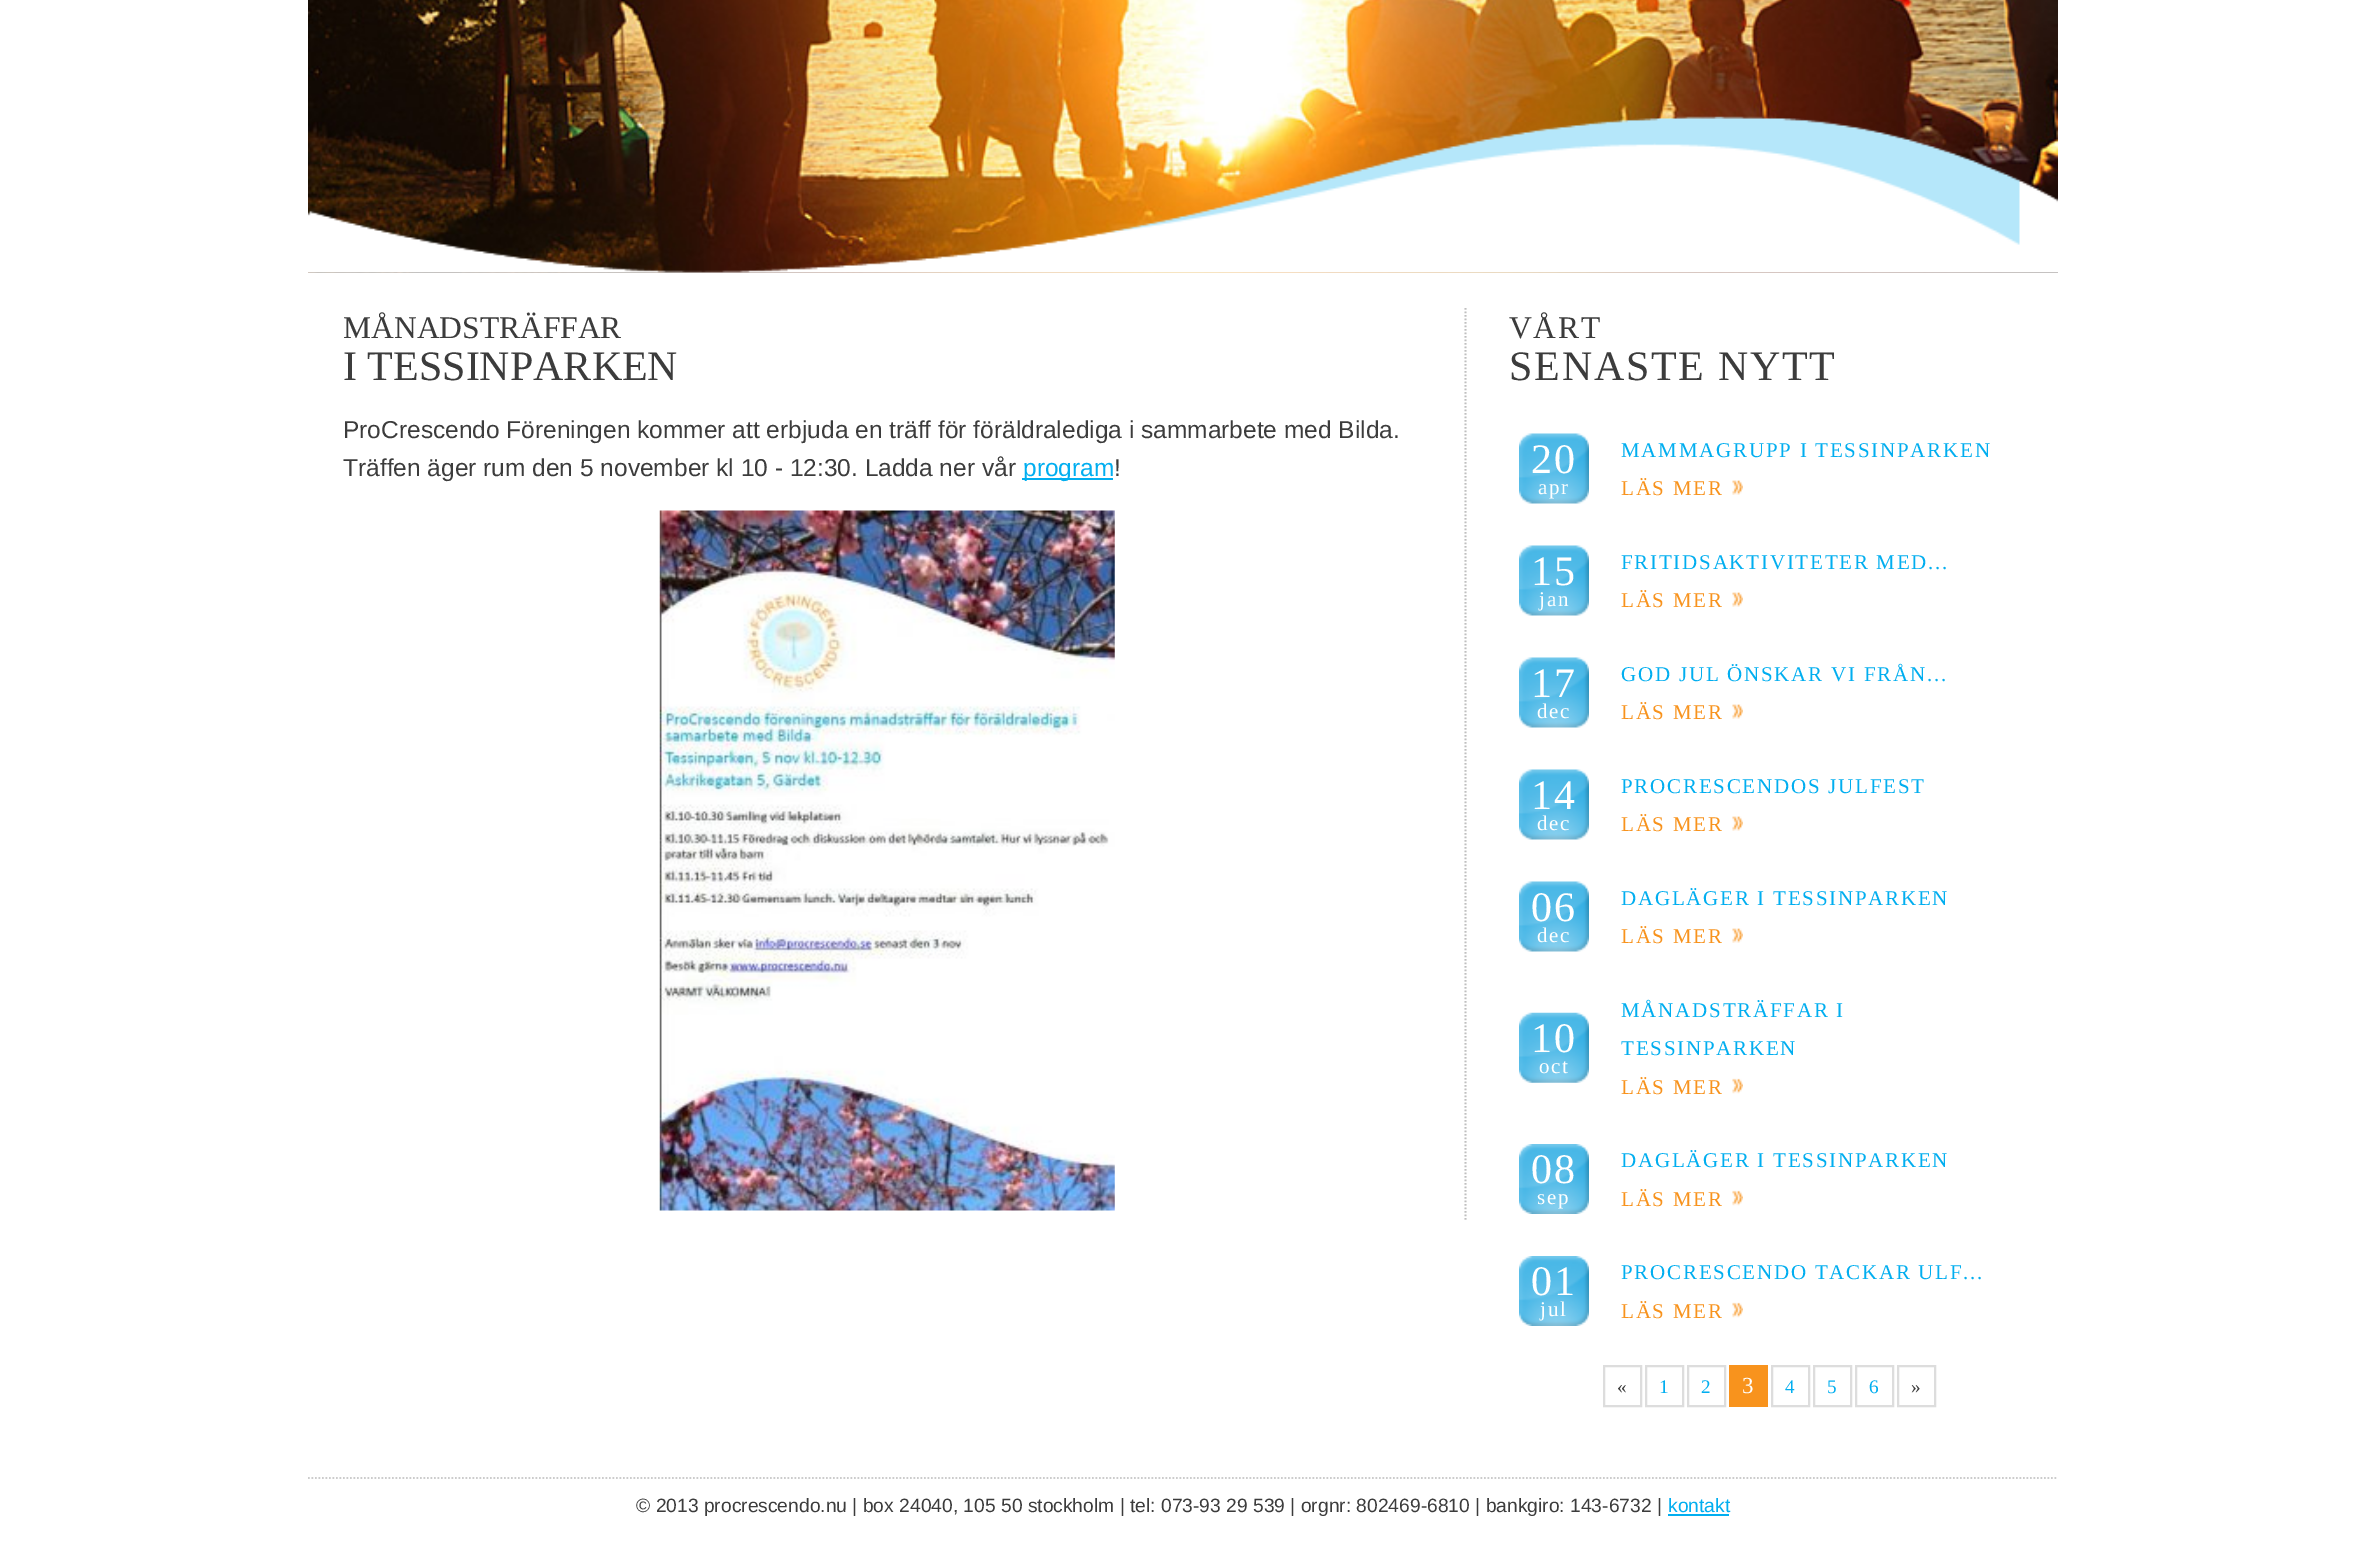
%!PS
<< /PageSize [2365 1549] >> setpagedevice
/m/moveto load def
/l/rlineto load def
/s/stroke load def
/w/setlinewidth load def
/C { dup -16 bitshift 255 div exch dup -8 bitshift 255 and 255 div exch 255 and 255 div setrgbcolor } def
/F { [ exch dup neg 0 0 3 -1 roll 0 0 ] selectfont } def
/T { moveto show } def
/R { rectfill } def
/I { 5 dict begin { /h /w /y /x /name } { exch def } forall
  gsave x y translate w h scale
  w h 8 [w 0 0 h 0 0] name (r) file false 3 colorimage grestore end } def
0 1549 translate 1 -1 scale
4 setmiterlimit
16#FFFFFF C
0 0 2365 1549 R
(1.rgb) 308 0 1750 273 I
(2.rgb) 308 116 1750 157 I
16#BFBFBF C
1.8 w
[1.75 1.75] 0 setdash
1465.5 308 m 0 913.5 l s
/LiberationSerif-Regular 31.5 F
16#3C3C3C C
(MÅNADSTRÄFFAR) 343 338 T
/LiberationSerif-Regular 42 F
(I TESSINPARKEN) 343 380 T
/LiberationSans-Regular 24.5 F
(ProCrescendo Föreningen kommer att erbjuda en träff för föräldralediga i sammarbete med Bilda.) 343 438 T
(Träffen äger rum den 5 november kl 10 - 12:30. Ladda ner vår) 343 476 T
16#01AEF0 C
1022 478 91 2 R
(program) 1023 476 T
16#3C3C3C C
(!) 1114 476 T
(3.rgb) 659 510 456 701 I
/LiberationSerif-Regular 31.5 F
1509 338 m 1.75 0 (VÅRT) ashow
/LiberationSerif-Regular 42 F
1509 380 m 1.75 0 (SENASTE NYTT) ashow
(4.rgb) 1519 433 70 71 I
16#FFFFFF C
1531 473 m 1.75 0 (20) ashow
/LiberationSerif-Regular 21 F
1538 494 m 1.75 0 (apr) ashow
16#01AEF0 C
1621 457 m 1.75 0 (MAMMAGRUPP I TESSINPARKEN) ashow
16#F8931D C
1621 495 m 1.75 0 (LÄS MER) ashow
(5.rgb) 1732 480 11 15 I
(4.rgb) 1519 545 70 71 I
/LiberationSerif-Regular 42 F
16#FFFFFF C
1531 585 m 1.75 0 (15) ashow
/LiberationSerif-Regular 21 F
1539 606 m 1.75 0 (jan) ashow
16#01AEF0 C
1621 569 m 1.75 0 (FRITIDSAKTIVITETER MED...) ashow
16#F8931D C
1621 607 m 1.75 0 (LÄS MER) ashow
(5.rgb) 1732 592 11 15 I
(4.rgb) 1519 657 70 71 I
/LiberationSerif-Regular 42 F
16#FFFFFF C
1531 697 m 1.75 0 (17) ashow
/LiberationSerif-Regular 21 F
1537 718 m 1.75 0 (dec) ashow
16#01AEF0 C
1621 681 m 1.75 0 (GOD JUL ÖNSKAR VI FRÅN...) ashow
16#F8931D C
1621 719 m 1.75 0 (LÄS MER) ashow
(5.rgb) 1732 704 11 15 I
(4.rgb) 1519 769 70 71 I
/LiberationSerif-Regular 42 F
16#FFFFFF C
1531 809 m 1.75 0 (14) ashow
/LiberationSerif-Regular 21 F
1537 830 m 1.75 0 (dec) ashow
16#01AEF0 C
1621 793 m 1.75 0 (PROCRESCENDOS JULFEST) ashow
16#F8931D C
1621 831 m 1.75 0 (LÄS MER) ashow
(5.rgb) 1732 816 11 15 I
(4.rgb) 1519 881 70 71 I
/LiberationSerif-Regular 42 F
16#FFFFFF C
1531 921 m 1.75 0 (06) ashow
/LiberationSerif-Regular 21 F
1537 942 m 1.75 0 (dec) ashow
16#01AEF0 C
1621 905 m 1.75 0 (DAGLÄGER I TESSINPARKEN) ashow
16#F8931D C
1621 943 m 1.75 0 (LÄS MER) ashow
(5.rgb) 1732 928 11 15 I
(6.rgb) 1519 1012 70 71 I
/LiberationSerif-Regular 42 F
16#FFFFFF C
1531 1052 m 1.75 0 (10) ashow
/LiberationSerif-Regular 21 F
1539 1073 m 1.75 0 (oct) ashow
16#01AEF0 C
1621 1017 m 1.75 0 (MÅNADSTRÄFFAR I) ashow
1621 1055 m 1.75 0 (TESSINPARKEN) ashow
16#F8931D C
1621 1094 m 1.75 0 (LÄS MER) ashow
(7.rgb) 1732 1078 11 16 I
(8.rgb) 1519 1144 70 70 I
/LiberationSerif-Regular 42 F
16#FFFFFF C
1531 1183 m 1.75 0 (08) ashow
/LiberationSerif-Regular 21 F
1537 1204 m 1.75 0 (sep) ashow
16#01AEF0 C
1621 1167 m 1.75 0 (DAGLÄGER I TESSINPARKEN) ashow
16#F8931D C
1621 1206 m 1.75 0 (LÄS MER) ashow
(9.rgb) 1732 1190 11 16 I
(10.rgb) 1519 1256 70 70 I
/LiberationSerif-Regular 42 F
16#FFFFFF C
1531 1295 m 1.75 0 (01) ashow
/LiberationSerif-Regular 21 F
1540 1316 m 1.75 0 (jul) ashow
16#01AEF0 C
1621 1279 m 1.75 0 (PROCRESCENDO TACKAR ULF...) ashow
16#F8931D C
1621 1318 m 1.75 0 (LÄS MER) ashow
(7.rgb) 1732 1302 11 16 I
16#DDDDDD C
2 w
[] 0 setdash
1604 1366 37 40 rectstroke
/LiberationSerif-Regular 19.25 F
16#3C3C3C C
1617 1393 m 1.75 0 («) ashow
16#DDDDDD C
1646 1366 37 40 rectstroke
16#01AEF0 C
1659 1393 m 1.75 0 (1) ashow
16#DDDDDD C
1688 1366 37 40 rectstroke
16#01AEF0 C
1701 1393 m 1.75 0 (2) ashow
16#F8931D C
1729 1365 39 42 R
/LiberationSerif-Regular 23 F
16#FFFFFF C
1742 1393 m 1.75 0 (3) ashow
16#DDDDDD C
1772 1366 37 40 rectstroke
/LiberationSerif-Regular 19.25 F
16#01AEF0 C
1785 1393 m 1.75 0 (4) ashow
16#DDDDDD C
1814 1366 37 40 rectstroke
16#01AEF0 C
1827 1393 m 1.75 0 (5) ashow
16#DDDDDD C
1856 1366 37 40 rectstroke
16#01AEF0 C
1869 1393 m 1.75 0 (6) ashow
16#DDDDDD C
1898 1366 37 40 rectstroke
16#3C3C3C C
1911 1393 m 1.75 0 (») ashow
16#CCCCCC C
1.8 w
[1.75 1.75] 0 setdash
308 1478 m 1750 0 l s
/LiberationSans-Regular 19.25 F
16#3C3C3C C
(© 2013 procrescendo.nu | box 24040, 105 50 stockholm | tel: 073-93 29 539 | orgnr: 802469-6810 | bankgiro: 143-6732 |) 636 1512 T
16#01AEF0 C
(kontakt) 1668 1512 T
1668 1514 61 2 R
showpage
